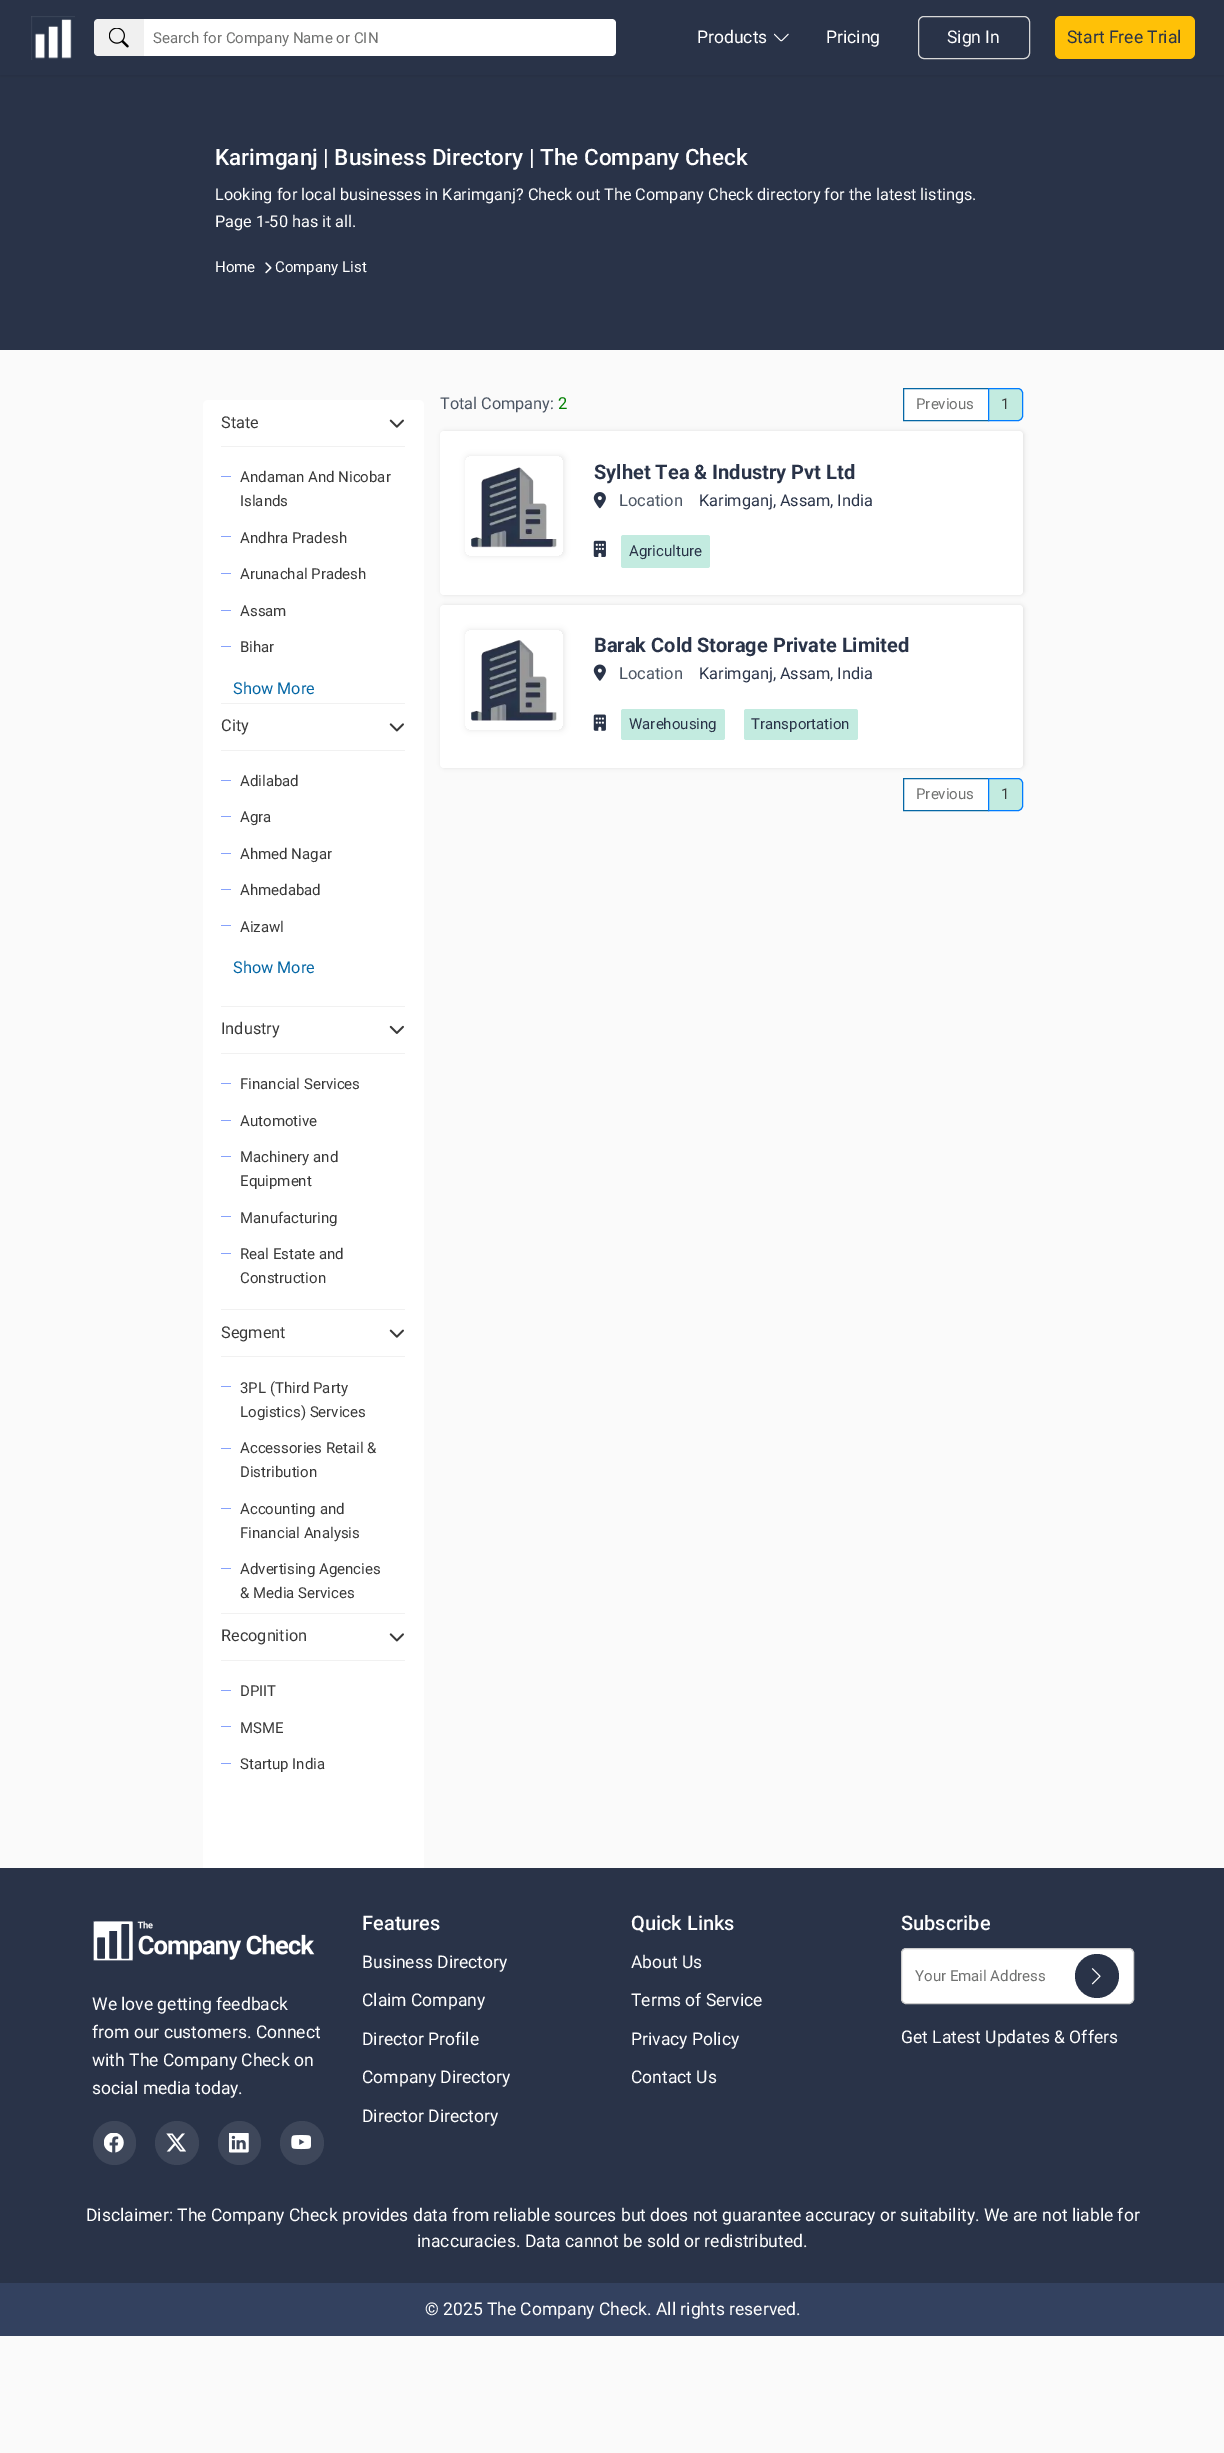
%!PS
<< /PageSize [1224 2453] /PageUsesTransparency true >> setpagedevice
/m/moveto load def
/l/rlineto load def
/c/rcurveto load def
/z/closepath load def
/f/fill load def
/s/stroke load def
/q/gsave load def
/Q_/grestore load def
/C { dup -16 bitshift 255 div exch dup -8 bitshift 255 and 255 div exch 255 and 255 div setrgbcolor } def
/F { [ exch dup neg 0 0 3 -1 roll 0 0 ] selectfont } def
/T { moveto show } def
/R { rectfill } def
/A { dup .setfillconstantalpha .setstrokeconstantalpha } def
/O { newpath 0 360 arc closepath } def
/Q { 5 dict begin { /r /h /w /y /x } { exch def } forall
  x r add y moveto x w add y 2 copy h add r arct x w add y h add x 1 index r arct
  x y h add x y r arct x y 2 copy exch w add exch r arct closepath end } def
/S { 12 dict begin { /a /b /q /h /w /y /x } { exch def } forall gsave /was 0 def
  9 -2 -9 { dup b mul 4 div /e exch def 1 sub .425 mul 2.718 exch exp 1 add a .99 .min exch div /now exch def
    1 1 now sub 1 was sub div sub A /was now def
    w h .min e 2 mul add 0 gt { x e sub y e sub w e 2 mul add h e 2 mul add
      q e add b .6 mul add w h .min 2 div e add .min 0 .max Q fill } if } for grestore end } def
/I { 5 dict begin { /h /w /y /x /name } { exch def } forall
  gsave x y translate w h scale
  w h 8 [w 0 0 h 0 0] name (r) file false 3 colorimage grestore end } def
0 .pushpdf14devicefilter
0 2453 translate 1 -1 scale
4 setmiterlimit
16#FAFAFA C
0 0 1224 2453 R
16#293348 C
0 75 1224 275 R
16#000000 C
0 1 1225 75 0 2 .1 S
16#293348 C
0 0 1224 75 R
(1.rgb) 31 16 44 44 I
16#F0F0F0 C
98 19 m 46 0 l 0 37 l -46 0 l -2 0 -4 -2 -4 -4 c 0 -29 l 0 -2 2 -4 4 -4 c z f
(2.rgb) 109 28 20 20 I
16#FFFFFF C
144 19 m 468 0 l 2 0 4 2 4 4 c 0 29 l 0 2 -2 4 -4 4 c -468 0 l z f
/Roboto-Regular 15 F
16#717271 C
(Search for Company Name or CIN) 153 43 T
/Roboto-Regular 17.5 F
16#FFFFFF C
(Products) 697 43 T
(3.rgb) 774 33 15 9 I
(Pricing) 826 43 T
16#D8D8D8 C
918.5 16.5 111 42 5.5 Q s
16#FFFFFF C
(Sign In) 947 43 T
16#FFC107 C
1055 16 140 43 6 Q f
16#293348 C
(Start Free Trial) 1067 43 T
/Roboto-Medium 22.5 F
16#FFFFFF C
(Karimganj | Business Directory | The Company Check) 215 165 T
/Roboto-Regular 16.25 F
(Looking for local businesses in Karimganj? Check out The Company Check directory for the latest listings.) 215 200 T
(Page 1-50 has it all.) 215 227 T
/Roboto-Regular 15 F
(Home) 215 272 T
(4.rgb) 265 262 7 12 I
(Company List) 275 272 T
203 400 221 1518 5 Q f
16#F1F1F1 C
221 446 184 1 R
/Roboto-Regular 16.25 F
16#393939 C
(State) 221 428 T
(5.rgb) 389 419 15 9 I
16#F1F1F1 C
221 703 184 1 R
16#87A2FB C
221 476 10 1 R
/Roboto-Regular 15 F
16#393939 C
(Andaman And Nicobar) 240 482 T
(Islands) 240 506 T
16#87A2FB C
221 536 10 1 R
16#393939 C
(Andhra Pradesh) 240 543 T
16#87A2FB C
221 573 10 1 R
16#393939 C
(Arunachal Pradesh) 240 579 T
16#87A2FB C
221 610 10 1 R
16#393939 C
(Assam) 240 616 T
16#87A2FB C
221 646 10 1 R
16#393939 C
(Bihar) 240 652 T
/Roboto-Regular 16.25 F
16#0567A5 C
(Show More) 233 694 T
16#F1F1F1 C
221 750 184 1 R
16#393939 C
(City) 221 731 T
(6.rgb) 389 723 15 9 I
16#F1F1F1 C
221 1006 184 1 R
16#87A2FB C
221 780 10 1 R
/Roboto-Regular 15 F
16#393939 C
(Adilabad) 240 786 T
16#87A2FB C
221 816 10 1 R
16#393939 C
(Agra) 240 822 T
16#87A2FB C
221 853 10 1 R
16#393939 C
(Ahmed Nagar) 240 859 T
16#87A2FB C
221 889 10 1 R
16#393939 C
(Ahmedabad) 240 895 T
16#87A2FB C
221 925 10 1 R
16#393939 C
(Aizawl) 240 932 T
/Roboto-Regular 16.25 F
16#0567A5 C
(Show More) 233 973 T
16#F1F1F1 C
221 1053 184 1 R
16#393939 C
(Industry) 221 1034 T
(7.rgb) 389 1025 15 9 I
16#F1F1F1 C
221 1309 184 1 R
16#87A2FB C
221 1083 10 1 R
/Roboto-Regular 15 F
16#393939 C
(Financial Services) 240 1089 T
16#87A2FB C
221 1120 10 1 R
16#393939 C
(Automotive) 240 1126 T
16#87A2FB C
221 1156 10 1 R
16#393939 C
(Machinery and) 240 1162 T
(Equipment) 240 1186 T
16#87A2FB C
221 1216 10 1 R
16#393939 C
(Manufacturing) 240 1223 T
16#87A2FB C
221 1253 10 1 R
16#393939 C
(Real Estate and) 240 1259 T
(Construction) 240 1283 T
16#F1F1F1 C
221 1356 184 1 R
/Roboto-Regular 16.25 F
16#393939 C
(Segment) 221 1338 T
(5.rgb) 389 1329 15 9 I
16#F1F1F1 C
221 1613 184 1 R
16#87A2FB C
221 1386 10 1 R
/Roboto-Regular 15 F
16#393939 C
(3PL \(Third Party) 240 1393 T
(Logistics\) Services) 240 1417 T
16#87A2FB C
221 1448 10 1 R
16#393939 C
(Accessories Retail &) 240 1453 T
(Distribution) 240 1477 T
16#87A2FB C
221 1508 10 1 R
16#393939 C
(Accounting and) 240 1514 T
(Financial Analysis) 240 1538 T
16#87A2FB C
221 1568 10 1 R
16#393939 C
(Advertising Agencies) 240 1574 T
(& Media Services) 240 1598 T
16#F1F1F1 C
221 1660 184 1 R
/Roboto-Regular 16.25 F
16#393939 C
(Recognition) 221 1641 T
(6.rgb) 389 1633 15 9 I
16#87A2FB C
221 1690 10 1 R
/Roboto-Regular 15 F
16#393939 C
(DPIIT) 240 1696 T
16#87A2FB C
221 1726 10 1 R
16#393939 C
(MSME) 240 1733 T
16#87A2FB C
221 1763 10 1 R
16#393939 C
(Startup India) 240 1769 T
/Roboto-Regular 16.25 F
16#4B5563 C
(Total Company:) 440 409 T
/Roboto-Regular 16.5 F
16#008000 C
(2) 558 409 T
16#FFFFFF C
903.5 388.5 m 85 0 l 0 32 l -85 0 l z q f Q_
16#0567A5 C
s
/Roboto-Regular 15 F
16#717271 C
(Previous) 916 409 T
16#C3EBE0 C
988.5 388.5 m 29.5 0 l 2.5 0 4.5 2 4.5 4.5 c 0 23 l 0 2.5 -2 4.5 -4.5 4.5 c -29.5 0 l z q f Q_
16#007BFF C
s
16#393939 C
(1) 1001 409 T
16#000000 C
441 431 583 164 4 2 .1 S
16#FFFFFF C
440 431 583 164 4 Q f
q
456 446 m 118 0 l 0 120 l -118 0 l z 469 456 m 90 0 l 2 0 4 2 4 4 c 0 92 l 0 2 -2 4 -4 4 c -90 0 l -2 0 -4 -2 -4 -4 c 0 -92 l 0 -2 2 -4 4 -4 c z eoclip newpath
16#000000 C
466 456 98 100 4 3 .1 S
Q_
(8.rgb) 471 467 86 81 I
/Roboto-Bold 20 F
16#293348 C
(Sylhet Tea & Industry Pvt Ltd) 594 479 T
(9.rgb) 593 492 13 17 I
/Roboto-Regular 16.5 F
16#4B5563 C
(Location) 619 506 T
/Roboto-Regular 16.25 F
16#293348 C
(Karimganj, Assam, India) 699 506 T
(10.rgb) 593 540 13 17 I
16#C3EBE0 C
621 535 89 33 2.5 Q f
/Roboto-Regular 15 F
16#293348 C
(Agriculture) 629 556 T
16#000000 C
441 605 583 163 4 2 .1 S
16#FFFFFF C
440 605 583 163 4 Q f
q
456 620 m 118 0 l 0 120 l -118 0 l z 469 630 m 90 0 l 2 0 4 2 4 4 c 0 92 l 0 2 -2 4 -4 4 c -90 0 l -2 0 -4 -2 -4 -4 c 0 -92 l 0 -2 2 -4 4 -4 c z eoclip newpath
16#000000 C
466 630 98 100 4 3 .1 S
Q_
(11.rgb) 471 640 86 81 I
/Roboto-Bold 20 F
16#293348 C
(Barak Cold Storage Private Limited) 594 652 T
(12.rgb) 593 664 13 17 I
/Roboto-Regular 16.5 F
16#4B5563 C
(Location) 619 679 T
/Roboto-Regular 16.25 F
16#293348 C
(Karimganj, Assam, India) 699 679 T
(13.rgb) 593 714 13 17 I
16#C3EBE0 C
621 709 104 31 2.5 Q f
/Roboto-Regular 15 F
16#293348 C
(Warehousing) 629 729 T
16#C3EBE0 C
744 709 114 31 2.5 Q f
16#293348 C
(Transportation) 751 729 T
16#FFFFFF C
903.5 778.5 m 85 0 l 0 32 l -85 0 l z q f Q_
16#0567A5 C
s
16#717271 C
(Previous) 916 799 T
16#C3EBE0 C
988.5 778.5 m 29.5 0 l 2.5 0 4.5 2 4.5 4.5 c 0 23 l 0 2.5 -2 4.5 -4.5 4.5 c -29.5 0 l z q f Q_
16#007BFF C
s
16#393939 C
(1) 1001 799 T
16#293348 C
0 1868 1224 415 R
(14.rgb) 93 1921 222 40 I
/Roboto-Regular 17.5 F
16#FFFFFF C
(We love getting feedback) 92 2010 T
(from our customers. Connect) 92 2038 T
(with The Company Check on) 92 2066 T
(social media today.) 92 2094 T
16#3E475A C
93 2121 43 44 21.5 Q f
(15.rgb) 104 2133 20 20 I
177 2143 22 O f
(16.rgb) 166 2133 20 19 I
218 2121 43 44 21.5 Q f
(17.rgb) 229 2133 20 20 I
302 2143 22 O f
(18.rgb) 291 2135 20 15 I
/Roboto-Medium 20 F
16#FFFFFF C
(Features) 362 1930 T
/Roboto-Regular 17.5 F
(Business Directory) 362 1968 T
(Claim Company) 362 2006 T
(Director Profile) 362 2045 T
(Company Directory) 362 2083 T
(Director Directory) 362 2122 T
/Roboto-Medium 20 F
(Quick Links) 631 1930 T
/Roboto-Regular 17.5 F
(About Us) 631 1968 T
(Terms of Service) 631 2006 T
(Privacy Policy) 631 2045 T
(Contact Us) 631 2083 T
/Roboto-Medium 20 F
(Subscribe) 901 1930 T
901.5 1948.5 232 55 4.5 Q q f Q_
16#CCCCCC C
s
/Roboto-Regular 15 F
16#717271 C
(Your Email Address) 915 1981 T
16#293348 C
1097 1976 22 O f
(19.rgb) 1091 1968 10 17 I
/Roboto-Regular 17.5 F
16#FFFFFF C
(Get Latest Updates & Offers) 901 2043 T
(Disclaimer: The Company Check provides data from reliable sources but does not guarantee accuracy or suitability. We are not liable for) 86 2221 T
(inaccuracies. Data cannot be sold or redistributed.) 417 2247 T
16#33415F C
0 2283 1224 53 R
16#FFFFFF C
(© 2025 The Company Check. All rights reserved.) 425 2315 T
.poppdf14devicefilter showpage
